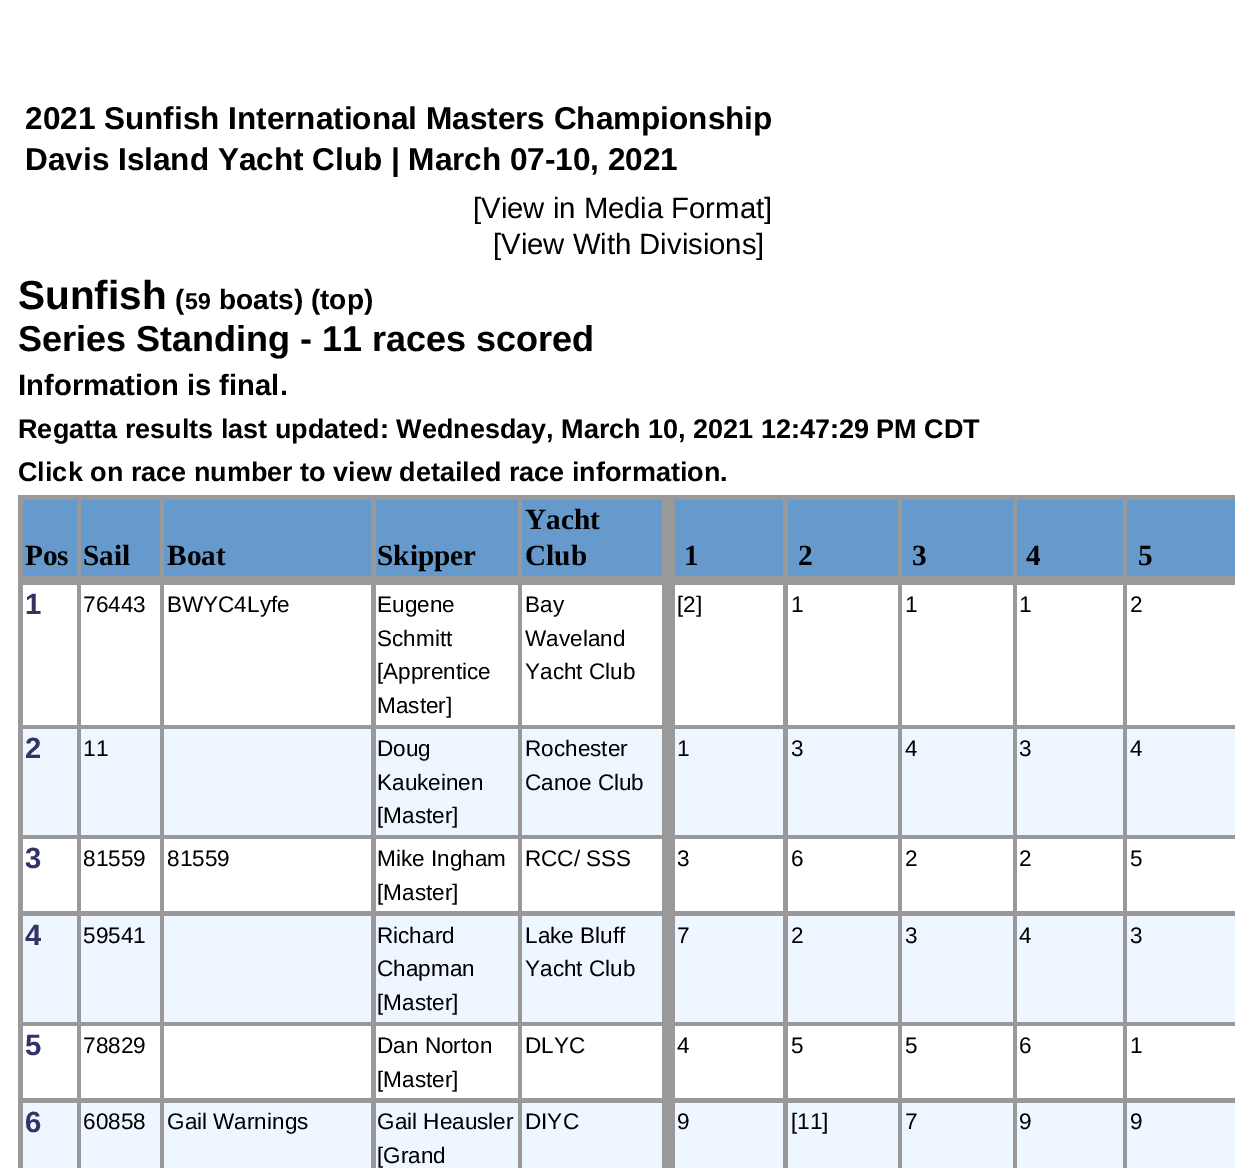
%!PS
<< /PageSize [1252 1168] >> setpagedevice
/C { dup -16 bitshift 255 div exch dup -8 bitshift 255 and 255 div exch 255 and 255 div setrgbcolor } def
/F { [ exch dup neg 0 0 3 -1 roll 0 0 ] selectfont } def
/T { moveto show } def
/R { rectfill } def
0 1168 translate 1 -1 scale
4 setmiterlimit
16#FFFFFF C
0 0 1252 1168 R
/LiberationSans-Bold 31.5 F
16#000000 C
(2021 Sunfish International Masters Championship) 25 129 T
(Davis Island Yacht Club | March 07-10, 2021) 25 170 T
/LiberationSans-Regular 29.25 F
([View in Media Format]) 473 218 T
([View With Divisions]) 493 254 T
/LiberationSans-Bold 40.5 F
(Sunfish) 18 309 T
/LiberationSans-Bold 28 F
(\() 175 309 T
/LiberationSans-Bold 23 F
(59) 185 309 T
/LiberationSans-Bold 28 F
(boats\) \(top\)) 219 309 T
/LiberationSans-Bold 36 F
(Series Standing - 11 races scored) 18 351 T
/LiberationSans-Bold 29.25 F
(Information is final.) 18 395 T
/LiberationSans-Bold 27 F
(Regatta results last updated: Wednesday, March 10, 2021 12:47:29 PM CDT) 18 438 T
(Click on race number to view detailed race information.) 18 481 T
16#999999 C
18 495 1217 673 R
16#6699CC C
23 500 54 76 R
/LiberationSerif-Bold 29.25 F
16#000000 C
(Pos) 25 565 T
16#6699CC C
81 500 79 76 R
16#000000 C
(Sail) 83 565 T
16#6699CC C
164 500 207 76 R
16#000000 C
(Boat) 167 565 T
16#6699CC C
376 500 142 76 R
16#000000 C
(Skipper) 377 565 T
16#6699CC C
522 500 140 76 R
16#000000 C
(Yacht) 525 529 T
(Club) 525 565 T
16#6699CC C
675 500 108 76 R
16#000000 C
(1) 684 565 T
16#6699CC C
788 500 110 76 R
16#000000 C
(2) 798 565 T
16#6699CC C
902 500 111 76 R
16#000000 C
(3) 912 565 T
16#6699CC C
1017 500 106 76 R
16#000000 C
(4) 1026 565 T
16#6699CC C
1127 500 108 76 R
16#000000 C
(5) 1138 565 T
16#FFFFFF C
23 585 54 140 R
/LiberationSans-Bold 29.25 F
16#333366 C
(1) 25 614 T
16#FFFFFF C
81 585 79 140 R
/LiberationSans-Regular 22.5 F
16#000000 C
(76443) 83 612 T
16#FFFFFF C
164 585 207 140 R
16#000000 C
(BWYC4Lyfe) 167 612 T
16#FFFFFF C
376 585 142 140 R
16#000000 C
(Eugene) 377 612 T
(Schmitt) 377 646 T
([Apprentice) 377 679 T
(Master]) 377 713 T
16#FFFFFF C
522 585 140 140 R
16#000000 C
(Bay) 525 612 T
(Waveland) 525 646 T
(Yacht Club) 525 679 T
16#FFFFFF C
675 585 108 140 R
16#000000 C
([2]) 677 612 T
16#FFFFFF C
788 585 110 140 R
16#000000 C
(1) 791 612 T
16#FFFFFF C
902 585 111 140 R
16#000000 C
(1) 905 612 T
16#FFFFFF C
1017 585 106 140 R
16#000000 C
(1) 1019 612 T
16#FFFFFF C
1127 585 108 140 R
16#000000 C
(2) 1130 612 T
16#EEF6FF C
23 729 54 106 R
/LiberationSans-Bold 29.25 F
16#333366 C
(2) 25 758 T
16#EEF6FF C
81 729 79 106 R
/LiberationSans-Regular 22.5 F
16#000000 C
(11) 83 756 T
16#EEF6FF C
164 729 207 106 R
376 729 142 106 R
16#000000 C
(Doug) 377 756 T
(Kaukeinen) 377 790 T
([Master]) 377 823 T
16#EEF6FF C
522 729 140 106 R
16#000000 C
(Rochester) 525 756 T
(Canoe Club) 525 790 T
16#EEF6FF C
675 729 108 106 R
16#000000 C
(1) 677 756 T
16#EEF6FF C
788 729 110 106 R
16#000000 C
(3) 791 756 T
16#EEF6FF C
902 729 111 106 R
16#000000 C
(4) 905 756 T
16#EEF6FF C
1017 729 106 106 R
16#000000 C
(3) 1019 756 T
16#EEF6FF C
1127 729 108 106 R
16#000000 C
(4) 1130 756 T
16#FFFFFF C
23 839 54 72 R
/LiberationSans-Bold 29.25 F
16#333366 C
(3) 25 868 T
16#FFFFFF C
81 839 79 72 R
/LiberationSans-Regular 22.5 F
16#000000 C
(81559) 83 866 T
16#FFFFFF C
164 839 207 72 R
16#000000 C
(81559) 167 866 T
16#FFFFFF C
376 839 142 72 R
16#000000 C
(Mike Ingham) 377 866 T
([Master]) 377 900 T
16#FFFFFF C
522 839 140 72 R
16#000000 C
(RCC/ SSS) 525 866 T
16#FFFFFF C
675 839 108 72 R
16#000000 C
(3) 677 866 T
16#FFFFFF C
788 839 110 72 R
16#000000 C
(6) 791 866 T
16#FFFFFF C
902 839 111 72 R
16#000000 C
(2) 905 866 T
16#FFFFFF C
1017 839 106 72 R
16#000000 C
(2) 1019 866 T
16#FFFFFF C
1127 839 108 72 R
16#000000 C
(5) 1130 866 T
16#EEF6FF C
23 916 54 106 R
/LiberationSans-Bold 29.25 F
16#333366 C
(4) 25 945 T
16#EEF6FF C
81 916 79 106 R
/LiberationSans-Regular 22.5 F
16#000000 C
(59541) 83 943 T
16#EEF6FF C
164 916 207 106 R
376 916 142 106 R
16#000000 C
(Richard) 377 943 T
(Chapman) 377 976 T
([Master]) 377 1010 T
16#EEF6FF C
522 916 140 106 R
16#000000 C
(Lake Bluff) 525 943 T
(Yacht Club) 525 976 T
16#EEF6FF C
675 916 108 106 R
16#000000 C
(7) 677 943 T
16#EEF6FF C
788 916 110 106 R
16#000000 C
(2) 791 943 T
16#EEF6FF C
902 916 111 106 R
16#000000 C
(3) 905 943 T
16#EEF6FF C
1017 916 106 106 R
16#000000 C
(4) 1019 943 T
16#EEF6FF C
1127 916 108 106 R
16#000000 C
(3) 1130 943 T
16#FFFFFF C
23 1026 54 72 R
/LiberationSans-Bold 29.25 F
16#333366 C
(5) 25 1055 T
16#FFFFFF C
81 1026 79 72 R
/LiberationSans-Regular 22.5 F
16#000000 C
(78829) 83 1053 T
16#FFFFFF C
164 1026 207 72 R
376 1026 142 72 R
16#000000 C
(Dan Norton) 377 1053 T
([Master]) 377 1087 T
16#FFFFFF C
522 1026 140 72 R
16#000000 C
(DLYC) 525 1053 T
16#FFFFFF C
675 1026 108 72 R
16#000000 C
(4) 677 1053 T
16#FFFFFF C
788 1026 110 72 R
16#000000 C
(5) 791 1053 T
16#FFFFFF C
902 1026 111 72 R
16#000000 C
(5) 905 1053 T
16#FFFFFF C
1017 1026 106 72 R
16#000000 C
(6) 1019 1053 T
16#FFFFFF C
1127 1026 108 72 R
16#000000 C
(1) 1130 1053 T
16#EEF6FF C
23 1103 54 65 R
/LiberationSans-Bold 29.25 F
16#333366 C
(6) 25 1132 T
16#EEF6FF C
81 1103 79 65 R
/LiberationSans-Regular 22.5 F
16#000000 C
(60858) 83 1129 T
16#EEF6FF C
164 1103 207 65 R
16#000000 C
(Gail Warnings) 167 1129 T
16#EEF6FF C
376 1103 142 65 R
16#000000 C
(Gail Heausler) 377 1129 T
([Grand) 377 1163 T
16#EEF6FF C
522 1103 140 65 R
16#000000 C
(DIYC) 525 1129 T
16#EEF6FF C
675 1103 108 65 R
16#000000 C
(9) 677 1129 T
16#EEF6FF C
788 1103 110 65 R
16#000000 C
([11]) 791 1129 T
16#EEF6FF C
902 1103 111 65 R
16#000000 C
(7) 905 1129 T
16#EEF6FF C
1017 1103 106 65 R
16#000000 C
(9) 1019 1129 T
16#EEF6FF C
1127 1103 108 65 R
16#000000 C
(9) 1130 1129 T
showpage
